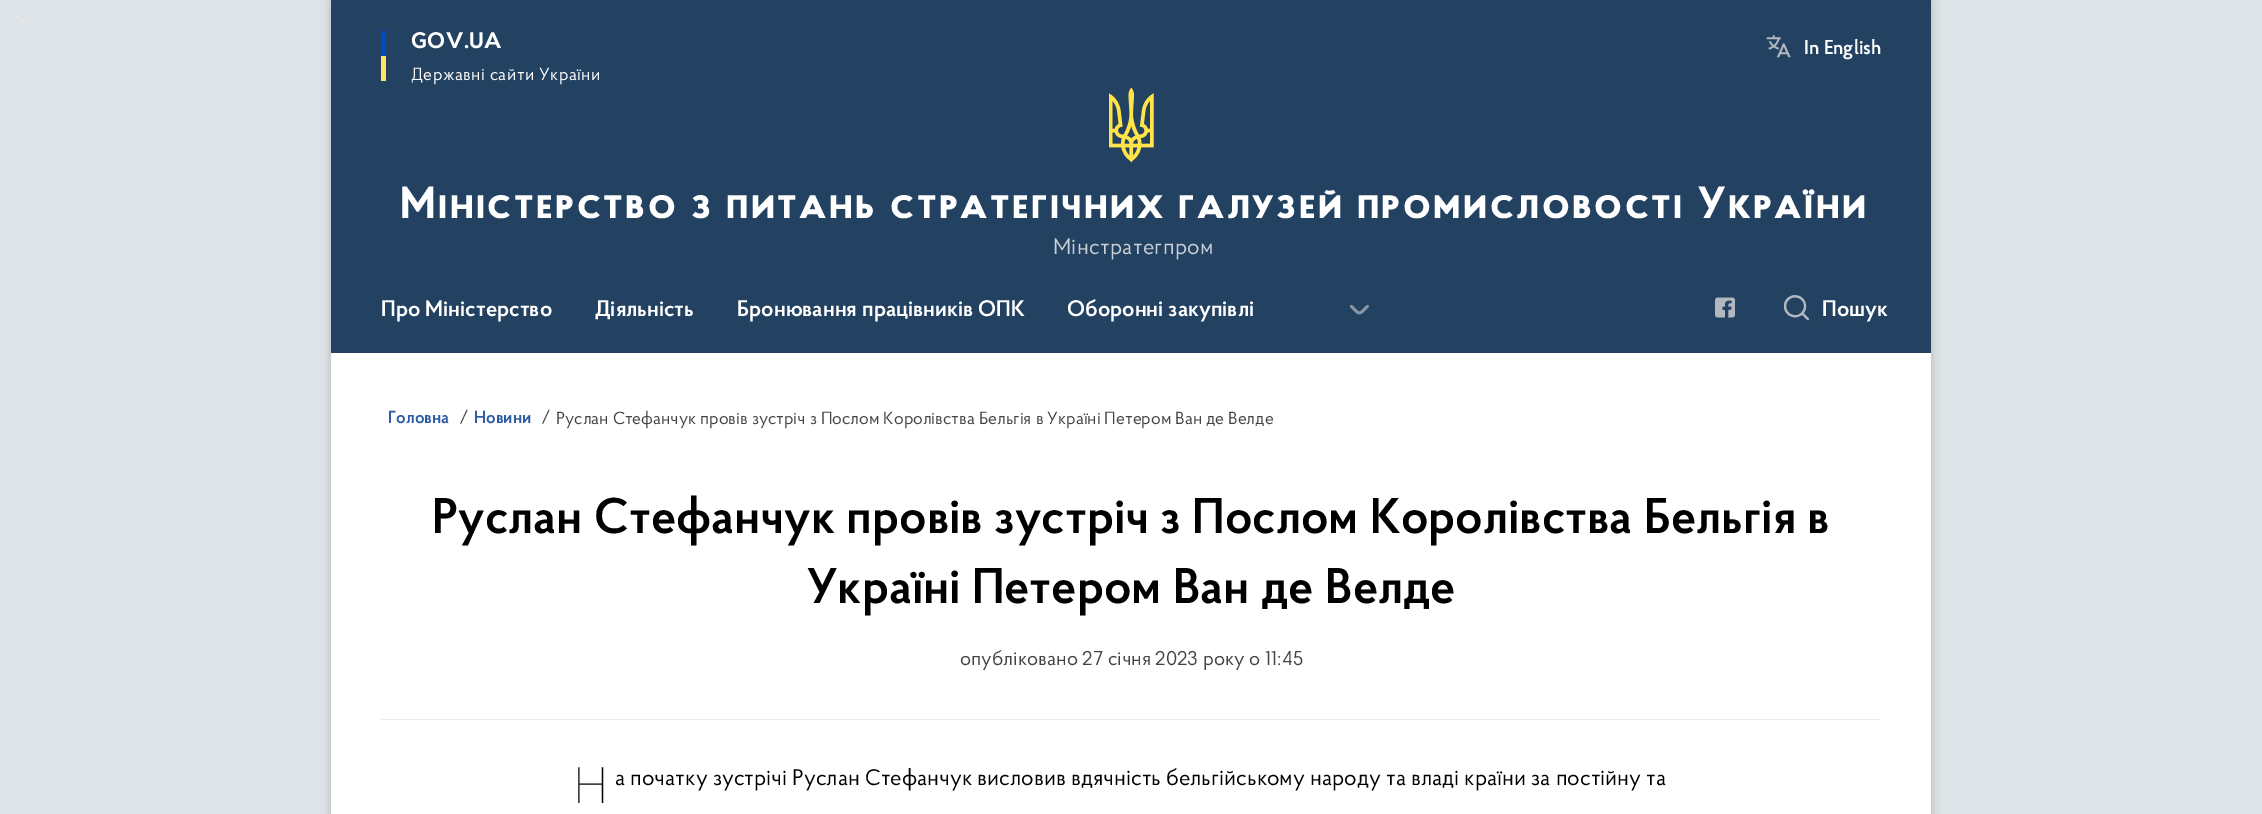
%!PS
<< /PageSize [2262 814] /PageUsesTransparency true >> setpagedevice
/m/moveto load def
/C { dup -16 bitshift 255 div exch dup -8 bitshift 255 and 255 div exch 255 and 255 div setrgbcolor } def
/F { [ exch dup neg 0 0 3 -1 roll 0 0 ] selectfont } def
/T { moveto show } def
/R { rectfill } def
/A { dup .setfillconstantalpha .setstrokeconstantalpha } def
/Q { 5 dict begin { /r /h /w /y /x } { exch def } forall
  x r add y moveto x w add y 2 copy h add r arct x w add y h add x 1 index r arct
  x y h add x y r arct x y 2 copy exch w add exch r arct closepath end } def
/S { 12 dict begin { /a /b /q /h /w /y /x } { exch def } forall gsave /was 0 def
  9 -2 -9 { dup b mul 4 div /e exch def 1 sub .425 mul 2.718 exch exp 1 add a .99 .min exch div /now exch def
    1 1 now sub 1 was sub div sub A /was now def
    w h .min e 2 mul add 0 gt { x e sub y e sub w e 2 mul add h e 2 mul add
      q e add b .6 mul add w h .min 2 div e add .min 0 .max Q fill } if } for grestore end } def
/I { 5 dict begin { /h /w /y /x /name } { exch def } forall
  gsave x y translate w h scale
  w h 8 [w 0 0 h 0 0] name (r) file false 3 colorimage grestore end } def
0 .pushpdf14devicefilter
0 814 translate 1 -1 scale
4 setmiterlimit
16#DEE4E7 C
0 0 2262 814 R
16#FFFFFF C
16 16 1 1 R
16#000000 C
331 1 1600 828 0 5 .2 S
16#FFFFFF C
331 353 1600 461 R
16#234161 C
331 0 1600 353 R
16#004BC1 C
381 31 5 25 R
16#FFE358 C
381 56 5 25 R
/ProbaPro-Bold 22.5 F
16#FFFFFF C
411 48 m .45 0 (GOV.UA) ashow
/ProbaPro-Regular 17.5 F
411 80 m .45 0 (Державні сайти України) ashow
(1.rgb) 1766 35 25 23 I
/ProbaPro-SemiBold 20 F
(In English) 1804 54 T
(2.rgb) 1109 88 45 75 I
/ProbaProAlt-Bold 45 F
400 218 m 2.5 0 (Міністерство з питань стратегічних галузей промисловості України) ashow
/ProbaPro-Regular 22.5 F
16#C8CFD7 C
1053 254 m .25 0 (Мінстратегпром) ashow
/ProbaPro-SemiBold 22.5 F
16#FFFFFF C
(Про Міністерство) 381 316 T
(Діяльність) 595 316 T
(Бронювання працівників ОПК) 737 316 T
(Оборонні закупівлі) 1067 316 T
(3.rgb) 1350 305 19 10 I
(4.rgb) 1715 297 20 21 I
(5.rgb) 1784 295 25 26 I
(Пошук) 1822 316 T
/ProbaPro-SemiBold 17.5 F
16#2D5CA6 C
(Головна) 388 423 T
/ProbaPro-Regular 17.5 F
16#444444 C
(/) 459 423 T
/ProbaPro-SemiBold 17.5 F
16#2D5CA6 C
(Новини) 474 423 T
/ProbaPro-Regular 17.5 F
16#444444 C
(/) 541 423 T
(Руслан Стефанчук провів зустріч з Послом Королівства Бельгія в Україні Петером Ван де Велде) 556 424 T
/ProbaPro-SemiBold 50 F
16#000000 C
(Руслан Стефанчук провів зустріч з Послом Королівства Бельгія в) 432 533 T
(Україні Петером Ван де Велде) 807 603 T
/ProbaPro-Regular 20 F
16#444444 C
(опубліковано 27 січня 2023 року о 11:45) 960 665 T
16#ECECEC C
381 719 1500 1 R
/NotoSans-Thin 50 F
16#000000 C
(Н) 573 803 T
/ProbaPro-Regular 22.5 F
(а початку зустрічі Руслан Стефанчук висловив вдячність бельгійському народу та владі країни за постійну та) 615 785 T
.poppdf14devicefilter showpage
